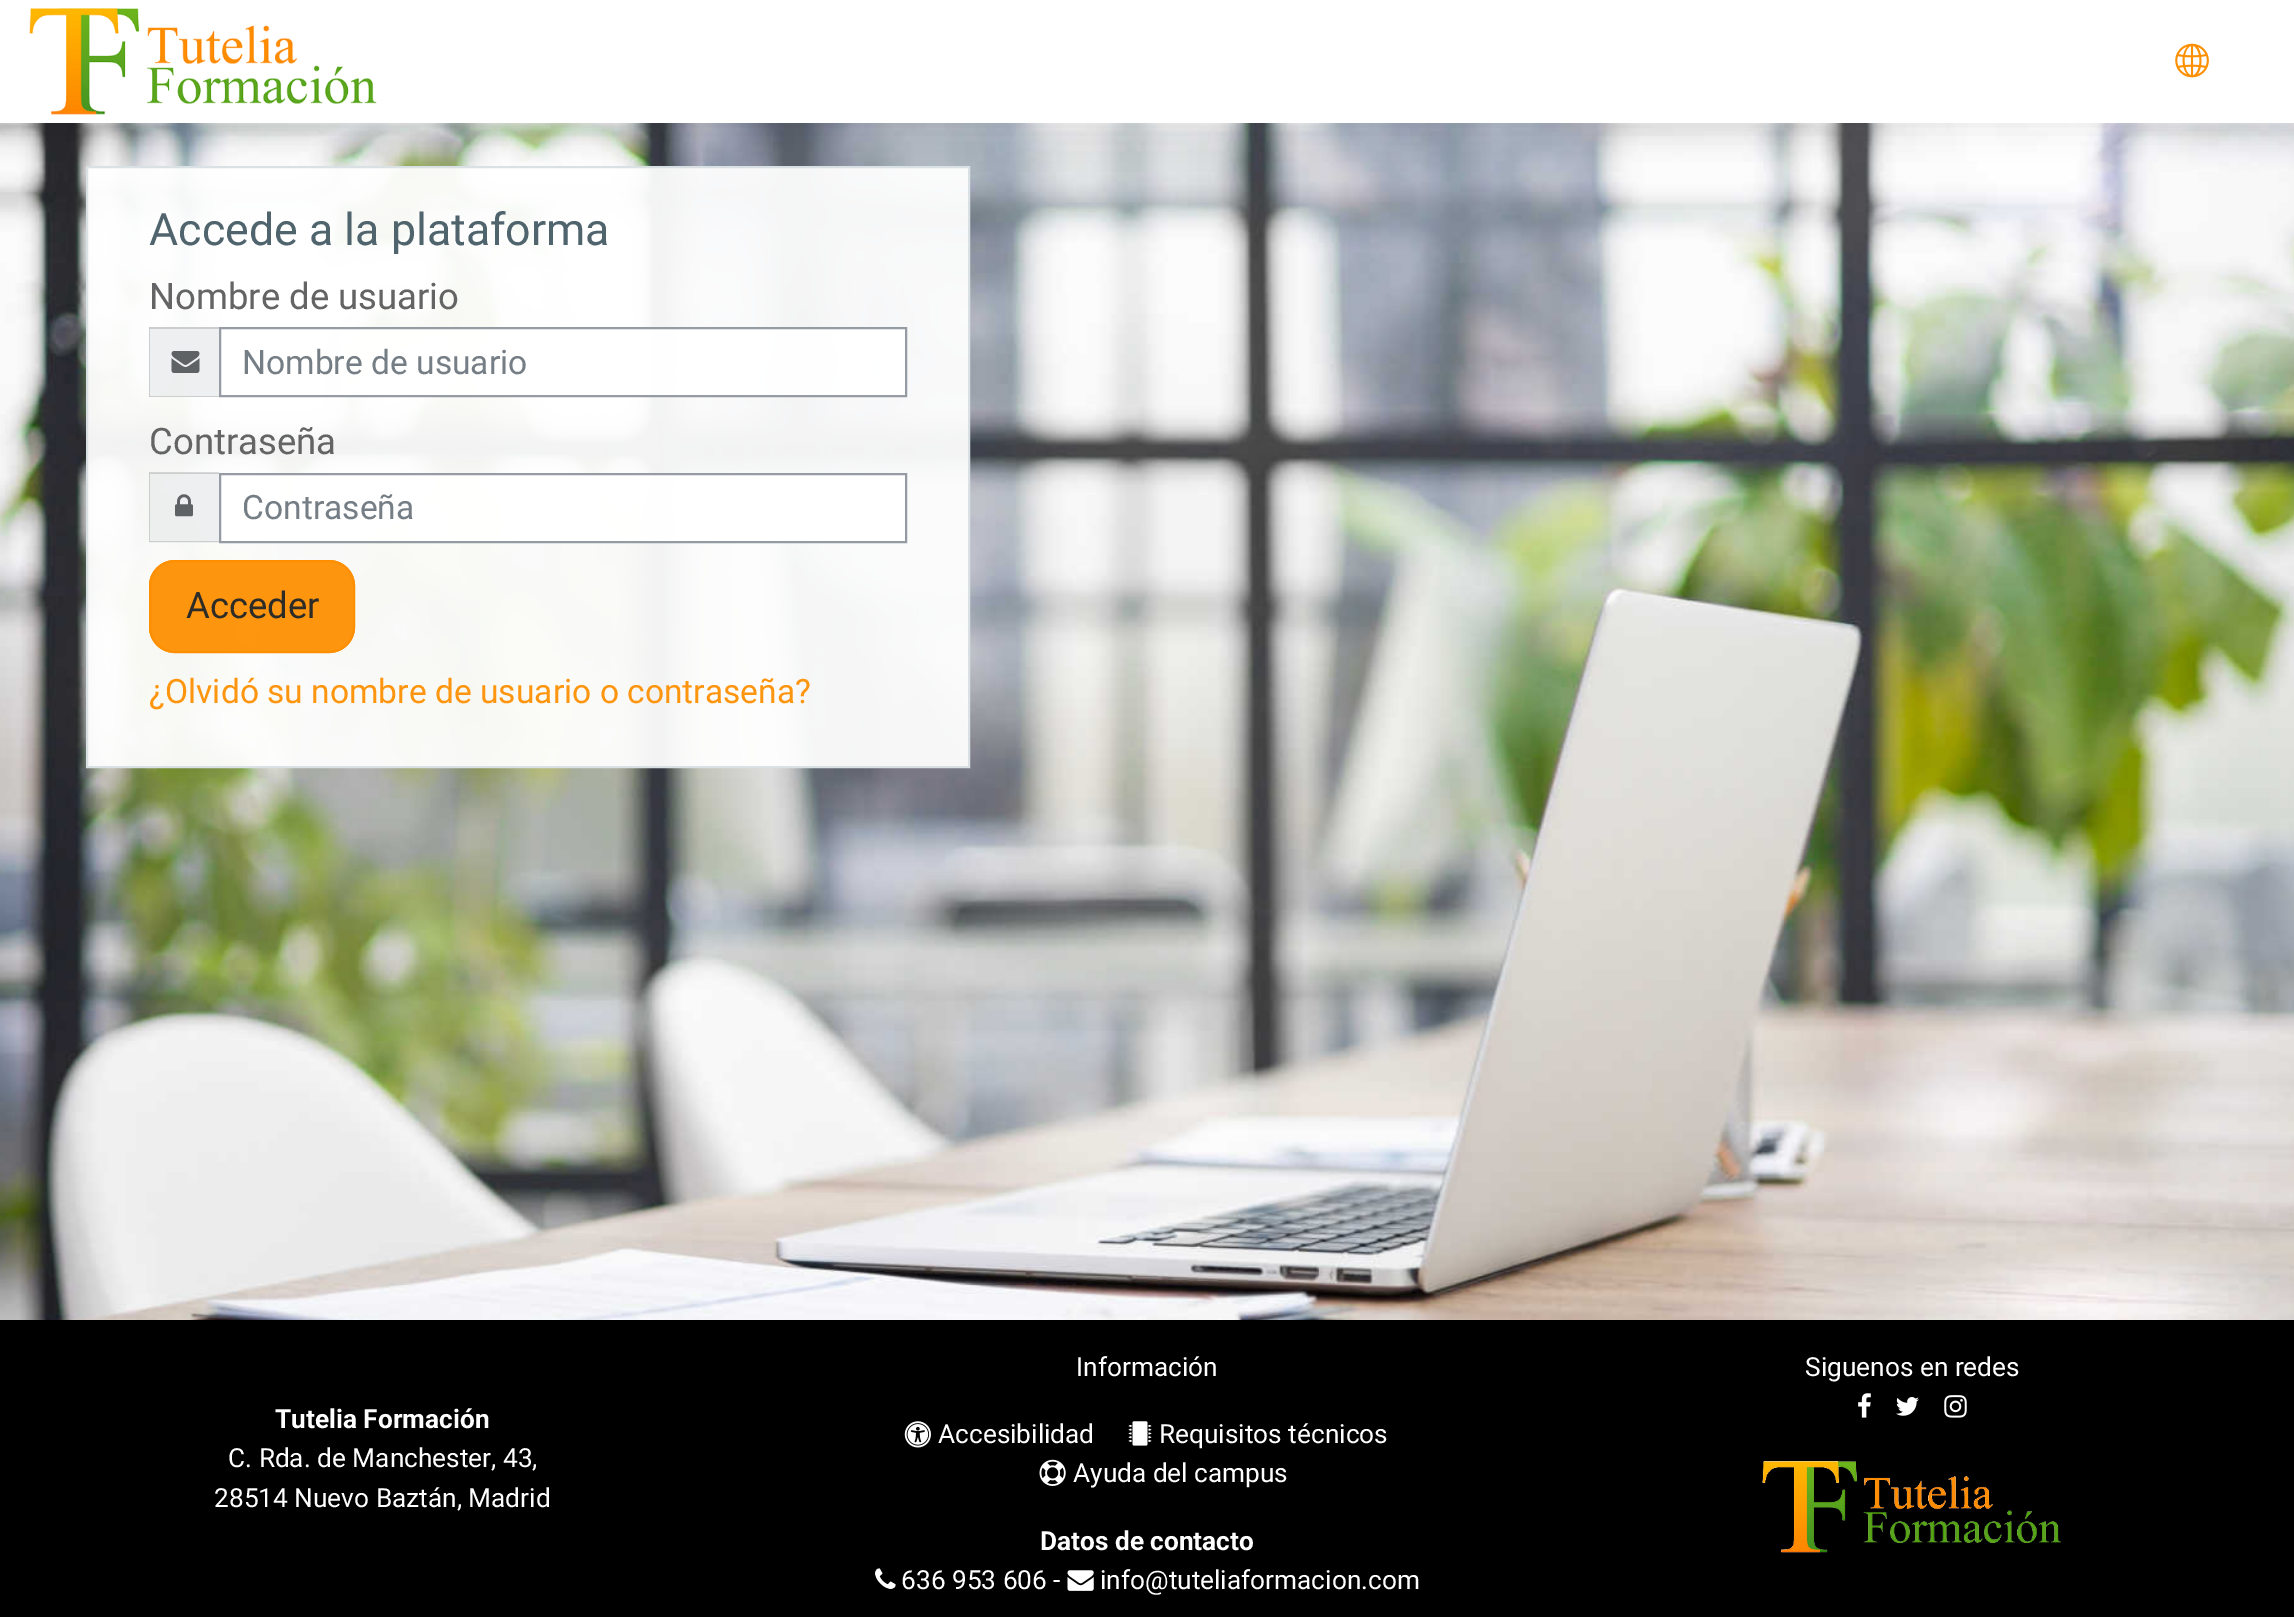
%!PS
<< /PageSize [2294 1617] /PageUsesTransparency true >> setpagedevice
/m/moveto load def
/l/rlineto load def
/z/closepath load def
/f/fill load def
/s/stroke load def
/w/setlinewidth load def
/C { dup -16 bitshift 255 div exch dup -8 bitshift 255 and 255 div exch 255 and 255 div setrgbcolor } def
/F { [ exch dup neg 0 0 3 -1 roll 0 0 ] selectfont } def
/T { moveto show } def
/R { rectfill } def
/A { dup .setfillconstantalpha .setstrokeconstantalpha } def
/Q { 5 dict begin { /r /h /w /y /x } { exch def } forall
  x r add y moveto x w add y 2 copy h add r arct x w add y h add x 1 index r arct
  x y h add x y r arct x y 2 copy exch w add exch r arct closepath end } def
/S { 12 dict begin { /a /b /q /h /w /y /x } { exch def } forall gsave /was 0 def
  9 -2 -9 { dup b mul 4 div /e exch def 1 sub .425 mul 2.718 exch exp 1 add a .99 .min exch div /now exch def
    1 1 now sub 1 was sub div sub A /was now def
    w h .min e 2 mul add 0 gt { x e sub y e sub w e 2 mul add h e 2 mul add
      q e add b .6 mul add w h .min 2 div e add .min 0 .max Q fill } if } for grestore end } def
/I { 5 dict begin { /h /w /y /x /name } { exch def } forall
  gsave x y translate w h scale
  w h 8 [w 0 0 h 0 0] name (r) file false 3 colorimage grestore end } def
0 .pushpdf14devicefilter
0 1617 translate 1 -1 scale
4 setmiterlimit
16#FFFFFF C
0 0 2294 1617 R
(1.rgb) 0 123 2294 1197 I
0.94 A
86 166 884 602 R
16#D7DFE3 C
2 w
87 167 882 600 rectstroke
1 A
16#000000 C
0 0 2294 123 0 17.5 .1 S
16#FFFFFF C
0 0 2294 123 R
(2.rgb) 29 8 348 107 I
(3.rgb) 2175 43 34 35 I
/Roboto-Regular 44.75 F
16#50646D C
(Accede a la plataforma) 149 245 T
/Roboto-Regular 36.5 F
16#646464 C
(Nombre de usuario) 149 309 T
0.94 A
16#ECEEEF C
149 327 70 70 R
1 A
16#CCCDCE C
149 327 m 70 0 l 0 2 l -69 0 l z f
219 397 m -70 0 l 1 -1 l 69 0 l z f
0.14 A
16#000000 C
149 397 m 0 -70 l 1 2 l 0 67 l z f
1 A
(4.rgb) 171 351 29 22 I
0.94 A
16#FFFFFF C
339 329 566 67 R
16#8F959E C
220 328 686 68 rectstroke
/Roboto-Regular 33.6 F
1 A
16#757D85 C
(Nombre de usuario) 242 374 T
/Roboto-Regular 36.5 F
16#646464 C
(Contraseña) 149 454 T
0.94 A
16#ECEEEF C
149 473 70 70 R
0.14 A
16#000000 C
149 472 m 70 0 l 0 2 l -69 0 l z f
1 A
16#CBCDCE C
219 542 m -70 0 l 1 -1 l 69 0 l z f
0.14 A
16#000000 C
149 542 m 0 -70 l 1 2 l 0 67 l z f
1 A
(5.rgb) 175 494 18 23 I
0.94 A
16#FFFFFF C
221 474 684 67 R
16#8F959E C
220 474 686 68 rectstroke
/Roboto-Regular 33.6 F
1 A
16#757D85 C
(Contraseña) 242 519 T
0.94 A
16#FE8F00 C
149 560 206 93 26 Q f
150 561 204 91 25 Q s
/Roboto-Regular 36.5 F
1 A
16#2E2C27 C
(Acceder) 186 618 T
/Roboto-Regular 33.6 F
16#FE950F C
(¿Olvidó su nombre de usuario o contraseña?) 149 703 T
16#000000 C
0 1320 2294 297 R
/Roboto-Regular 26.25 F
16#FFFFFF C
(Información) 1076 1376 T
(6.rgb) 904 1421 27 27 I
(Accesibilidad) 938 1443 T
(7.rgb) 1128 1421 24 25 I
(Requisitos técnicos) 1159 1443 T
(8.rgb) 1039 1459 27 27 I
(Ayuda del campus) 1073 1482 T
/Roboto-Bold 26.25 F
(Datos de contacto) 1040 1550 T
(9.rgb) 875 1568 21 21 I
/Roboto-Regular 26.25 F
(636 953 606 -) 901 1589 T
(10.rgb) 1067 1570 27 21 I
(info@tuteliaformacion.com) 1100 1589 T
(Siguenos en redes) 1805 1376 T
(11.rgb) 1858 1393 13 25 I
(12.rgb) 1896 1397 23 19 I
(13.rgb) 1944 1395 23 23 I
(14.rgb) 1762 1461 300 92 I
/Roboto-Bold 26.25 F
(Tutelia Formación) 275 1428 T
/Roboto-Regular 26.25 F
(C. Rda. de Manchester, 43,) 228 1467 T
(28514 Nuevo Baztán, Madrid) 214 1507 T
.poppdf14devicefilter showpage
